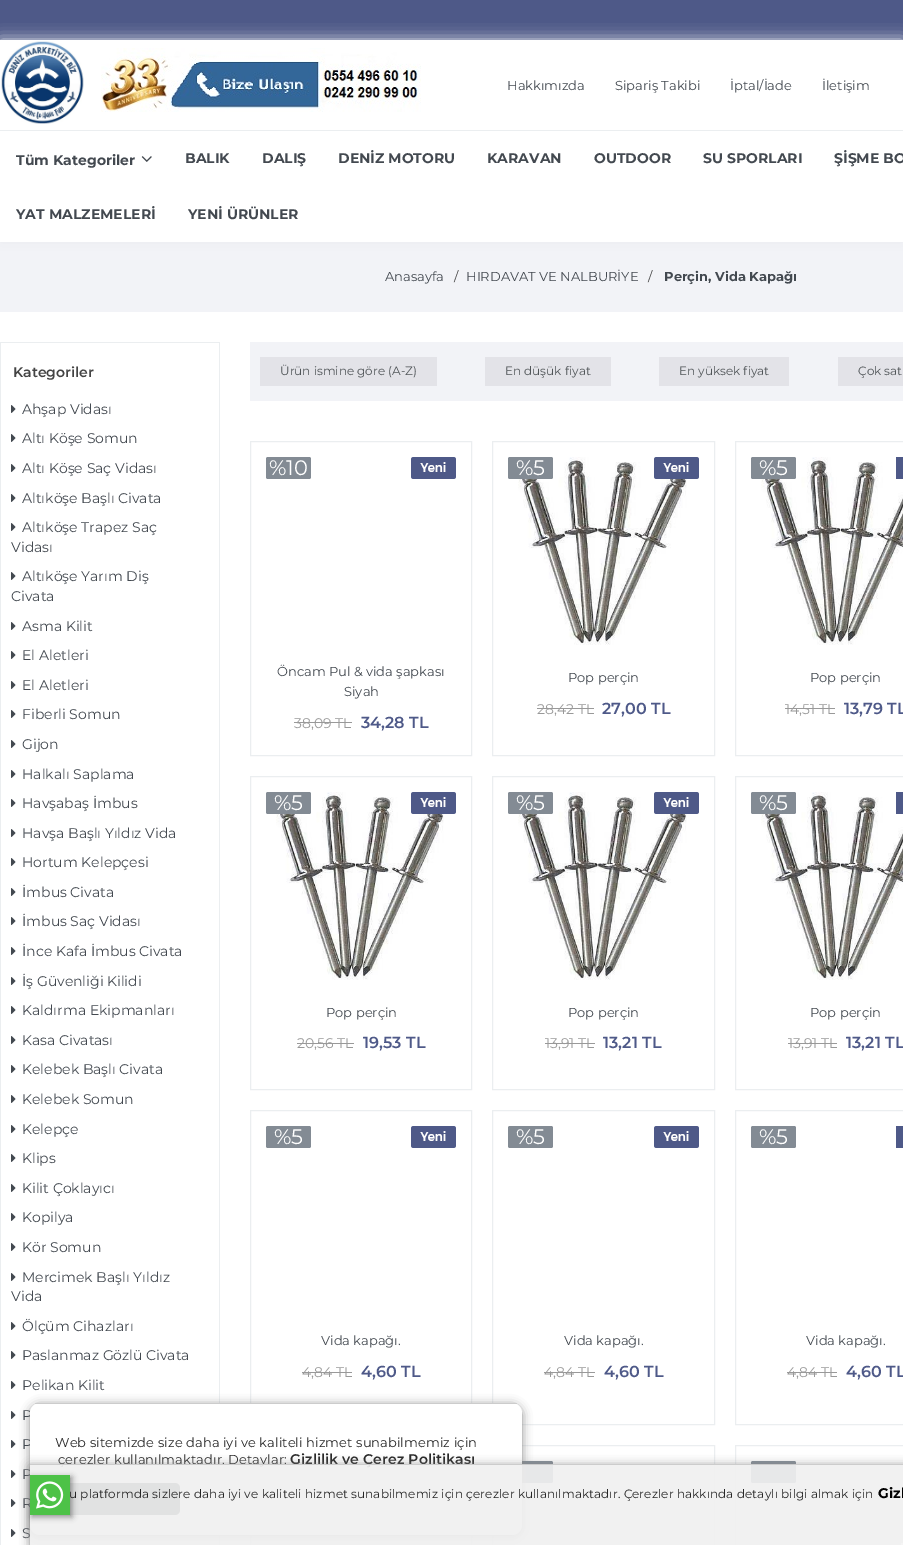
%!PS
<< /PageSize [903 1545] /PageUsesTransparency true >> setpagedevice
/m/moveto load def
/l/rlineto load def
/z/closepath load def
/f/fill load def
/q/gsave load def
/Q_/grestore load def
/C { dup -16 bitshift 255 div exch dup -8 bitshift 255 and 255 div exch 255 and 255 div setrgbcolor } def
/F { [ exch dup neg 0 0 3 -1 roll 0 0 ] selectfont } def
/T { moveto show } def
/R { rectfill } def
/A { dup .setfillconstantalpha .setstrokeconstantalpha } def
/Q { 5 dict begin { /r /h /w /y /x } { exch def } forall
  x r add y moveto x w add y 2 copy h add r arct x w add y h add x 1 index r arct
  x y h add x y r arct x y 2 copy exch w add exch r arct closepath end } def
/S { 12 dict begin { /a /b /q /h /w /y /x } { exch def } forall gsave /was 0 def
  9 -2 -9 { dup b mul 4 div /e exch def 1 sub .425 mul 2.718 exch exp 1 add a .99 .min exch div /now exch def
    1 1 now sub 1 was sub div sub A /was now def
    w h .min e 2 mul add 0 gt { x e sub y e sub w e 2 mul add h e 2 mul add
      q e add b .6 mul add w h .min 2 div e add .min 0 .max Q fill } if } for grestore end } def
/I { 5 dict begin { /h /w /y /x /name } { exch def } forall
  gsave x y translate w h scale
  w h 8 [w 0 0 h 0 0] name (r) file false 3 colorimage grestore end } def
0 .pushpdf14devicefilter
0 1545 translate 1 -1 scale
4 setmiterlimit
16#FFFFFF C
0 0 903 1545 R
16#4E5988 C
0 0 903 40 R
16#F2F3F7 C
0 242 903 70 R
q
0 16 m 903 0 l 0 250 l -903 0 l z 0 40 m 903 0 l 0 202 l -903 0 l z eoclip newpath
16#E9EAEF C
0 40 903 202 0 7.5 1 S
Q_
(1.rgb) 1 41 83 83 I
(2.rgb) 101 48 320 64 I
/Montserrat-Regular 13 F
16#434950 C
(Hakkımızda) 507 90 T
(Sipariş Takibi) 615 90 T
(İptal/İade) 730 90 T
(İletişim) 822 90 T
16#EBEEF0 C
0 130 903 1 R
/Montserrat-Bold 14 F
16#434950 C
(Tüm Kategoriler) 16 165 T
(3.rgb) 141 156 11 6 I
(BALIK) 185 163 T
(DALIŞ) 262 163 T
(DENİZ MOTORU) 338 163 T
(KARAVAN) 487 163 T
(OUTDOOR) 594 163 T
(SU SPORLARI) 703 163 T
(ŞİŞME BO) 834 163 T
(YAT MALZEMELERİ) 16 219 T
(YENİ ÜRÜNLER) 188 219 T
16#EBEEF0 C
219 342 1 1203 R
(4.rgb) 11 1411 5 8 I
(4.rgb) 11 1440 5 8 I
(4.rgb) 11 1470 5 8 I
(4.rgb) 11 1499 5 8 I
(4.rgb) 11 1529 5 8 I
250.5 1110.5 221 314 rectstroke
492.5 1110.5 222 314 rectstroke
250.5 1445.5 221 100 rectstroke
492.5 1445.5 222 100 rectstroke
16#838B94 C
508 1461 45 22 2 Q f
16#888888 C
30 1405 492 132 10 5 1 S
/Montserrat-Regular 14 F
16#434950 C
(P) 22 1420 T
(P) 22 1449 T
(P) 22 1479 T
(R) 22 1508 T
16#FFFFFF C
30 1403 492 132 10 Q f
16#CCCCCC C
35 1403 482 1 R
/Montserrat-Regular 13 F
16#262626 C
55 1447 m .1 0 (Web sitemizde size daha iyi ve kaliteli hizmet sunabilmemiz için) ashow
58 1464 m .1 0 (çerezler kullanılmaktadır. Detaylar:) ashow
/Montserrat-SemiBold 14 F
290 1464 m .1 0 (Gizlilik ve Çerez Politikası) ashow
16#37393B C
50 1483 130 32 5 Q f
/Montserrat-Regular 13 F
16#434950 C
(Anasayfa) 385 281 T
16#444444 C
(/) 454 281 T
16#434950 C
(HIRDAVAT VE NALBURİYE) 466 281 T
16#444444 C
(/) 648 281 T
/Montserrat-Bold 13 F
16#434950 C
(Perçin, Vida Kapağı) 664 281 T
16#EBEEF0 C
0 342 1 1203 R
1 342 218 1 R
/Montserrat-SemiBold 14 F
16#444444 C
(Kategoriler) 13 377 T
(4.rgb) 11 405 5 8 I
/Montserrat-Regular 14 F
16#434950 C
(Ahşap Vidası) 22 414 T
(4.rgb) 11 434 5 8 I
(Altı Köşe Somun) 22 443 T
(4.rgb) 11 464 5 8 I
(Altı Köşe Saç Vidası) 22 473 T
(4.rgb) 11 494 5 8 I
(Altıköşe Başlı Civata) 22 503 T
(4.rgb) 11 523 5 8 I
(Altıköşe Trapez Saç) 22 532 T
(Vidası) 11 552 T
(4.rgb) 11 572 5 8 I
(Altıköşe Yarım Diş) 22 581 T
(Civata) 11 601 T
(4.rgb) 11 622 5 8 I
(Asma Kilit) 22 631 T
(4.rgb) 11 651 5 8 I
(El Aletleri) 22 660 T
(4.rgb) 11 681 5 8 I
(El Aletleri) 22 690 T
(4.rgb) 11 710 5 8 I
(Fiberli Somun) 22 719 T
(4.rgb) 11 740 5 8 I
(Gijon) 22 749 T
(4.rgb) 11 770 5 8 I
(Halkalı Saplama) 22 779 T
(4.rgb) 11 799 5 8 I
(Havşabaş İmbus) 22 808 T
(4.rgb) 11 829 5 8 I
(Havşa Başlı Yıldız Vida) 22 838 T
(4.rgb) 11 858 5 8 I
(Hortum Kelepçesi) 22 867 T
(4.rgb) 11 888 5 8 I
(İmbus Civata) 22 897 T
(4.rgb) 11 917 5 8 I
(İmbus Saç Vidası) 22 926 T
(4.rgb) 11 947 5 8 I
(İnce Kafa İmbus Civata) 22 956 T
(4.rgb) 11 977 5 8 I
(İş Güvenliği Kilidi) 22 986 T
(4.rgb) 11 1006 5 8 I
(Kaldırma Ekipmanları) 22 1015 T
(4.rgb) 11 1036 5 8 I
(Kasa Civatası) 22 1045 T
(4.rgb) 11 1065 5 8 I
(Kelebek Başlı Civata) 22 1074 T
(4.rgb) 11 1095 5 8 I
(Kelebek Somun) 22 1104 T
(4.rgb) 11 1125 5 8 I
(Kelepçe) 22 1134 T
(4.rgb) 11 1154 5 8 I
(Klips) 22 1163 T
(4.rgb) 11 1184 5 8 I
(Kilit Çoklayıcı) 22 1193 T
(4.rgb) 11 1213 5 8 I
(Kopilya) 22 1222 T
(4.rgb) 11 1243 5 8 I
(Kör Somun) 22 1252 T
(4.rgb) 11 1273 5 8 I
(Mercimek Başlı Yıldız) 22 1282 T
(Vida) 11 1301 T
(4.rgb) 11 1322 5 8 I
(Ölçüm Cihazları) 22 1331 T
(4.rgb) 11 1351 5 8 I
(Paslanmaz Gözlü Civata) 22 1360 T
(4.rgb) 11 1381 5 8 I
(Pelikan Kilit) 22 1390 T
(S) 22 1538 T
16#F2F3F7 C
250 342 653 59 R
16#E3E3E8 C
260 357 177 29 R
/Montserrat-Regular 12 F
16#505558 C
(Ürün ismine göre \(A-Z\)) 280 375 T
16#E3E3E8 C
485 357 126 29 R
16#505558 C
(En düşük fiyat) 505 375 T
16#E3E3E8 C
659 357 130 29 R
16#505558 C
(En yüksek fiyat) 679 375 T
16#E3E3E8 C
838 357 65 29 R
16#505558 C
(Çok sat) 858 375 T
16#EBEEF0 C
250.5 441.5 221 314 rectstroke
16#838B94 C
266 457 45 22 2 Q f
/Montserrat-Regular 21 F
16#FFFFFF C
(%10) 269 475 T
(5.rgb) 411 457 45 22 I
/Montserrat-Regular 13 F
16#434950 C
(Öncam Pul & vida şapkası) 277 676 T
(Siyah) 344 696 T
/Montserrat-Regular 14 F
16#999999 C
(38,09 TL) 294 728 T
294 722 58 1 R
/Montserrat-SemiBold 16 F
16#4E5988 C
(34,28 TL) 361 728 T
16#EBEEF0 C
492.5 441.5 222 314 rectstroke
(6.rgb) 518 457 169 188 I
16#838B94 C
508 457 45 22 2 Q f
/Montserrat-Regular 21 F
16#FFFFFF C
(%5) 516 475 T
(5.rgb) 654 457 45 22 I
/Montserrat-Regular 13 F
16#434950 C
(Pop perçin) 568 682 T
/Montserrat-Regular 14 F
16#999999 C
(28,42 TL) 537 714 T
537 708 57 1 R
/Montserrat-SemiBold 16 F
16#4E5988 C
(27,00 TL) 602 714 T
16#EBEEF0 C
735.5 441.5 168 314 rectstroke
(7.rgb) 761 457 142 188 I
16#838B94 C
751 457 45 22 2 Q f
/Montserrat-Regular 21 F
16#FFFFFF C
(%5) 759 475 T
16#4E5988 C
896 457 7 22 R
/Montserrat-Regular 13 F
16#434950 C
(Pop perçin) 810 682 T
/Montserrat-Regular 14 F
16#999999 C
(14,51 TL) 785 714 T
785 708 50 1 R
/Montserrat-SemiBold 16 F
16#4E5988 C
(13,79 TL) 844 714 T
16#EBEEF0 C
250.5 776.5 221 313 rectstroke
(8.rgb) 276 792 168 188 I
16#838B94 C
266 792 45 22 2 Q f
/Montserrat-Regular 21 F
16#FFFFFF C
(%5) 274 810 T
(5.rgb) 411 792 45 22 I
/Montserrat-Regular 13 F
16#434950 C
(Pop perçin) 326 1017 T
/Montserrat-Regular 14 F
16#999999 C
(20,56 TL) 297 1048 T
297 1043 57 1 R
/Montserrat-SemiBold 16 F
16#4E5988 C
(19,53 TL) 363 1048 T
16#EBEEF0 C
492.5 776.5 222 313 rectstroke
(6.rgb) 518 792 169 188 I
16#838B94 C
508 792 45 22 2 Q f
/Montserrat-Regular 21 F
16#FFFFFF C
(%5) 516 810 T
(5.rgb) 654 792 45 22 I
/Montserrat-Regular 13 F
16#434950 C
(Pop perçin) 568 1017 T
/Montserrat-Regular 14 F
16#999999 C
(13,91 TL) 545 1048 T
545 1043 50 1 R
/Montserrat-SemiBold 16 F
16#4E5988 C
(13,21 TL) 603 1048 T
16#EBEEF0 C
735.5 776.5 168 313 rectstroke
(7.rgb) 761 792 142 188 I
16#838B94 C
751 792 45 22 2 Q f
/Montserrat-Regular 21 F
16#FFFFFF C
(%5) 759 810 T
16#4E5988 C
896 792 7 22 R
/Montserrat-Regular 13 F
16#434950 C
(Pop perçin) 810 1017 T
/Montserrat-Regular 14 F
16#999999 C
(13,91 TL) 788 1048 T
788 1043 49 1 R
/Montserrat-SemiBold 16 F
16#4E5988 C
(13,21 TL) 846 1048 T
16#838B94 C
266 1126 45 22 2 Q f
/Montserrat-Regular 21 F
16#FFFFFF C
(%5) 274 1144 T
(5.rgb) 411 1126 45 22 I
/Montserrat-Regular 13 F
16#434950 C
(Vida kapağı.) 321 1345 T
/Montserrat-Regular 14 F
16#999999 C
(4,84 TL) 302 1377 T
302 1372 50 1 R
/Montserrat-SemiBold 16 F
16#4E5988 C
(4,60 TL) 361 1377 T
16#838B94 C
508 1126 45 22 2 Q f
/Montserrat-Regular 21 F
16#FFFFFF C
(%5) 516 1144 T
(5.rgb) 654 1126 45 22 I
/Montserrat-Regular 13 F
16#434950 C
(Vida kapağı.) 564 1345 T
/Montserrat-Regular 14 F
16#999999 C
(4,84 TL) 544 1377 T
544 1372 51 1 R
/Montserrat-SemiBold 16 F
16#4E5988 C
(4,60 TL) 604 1377 T
16#EBEEF0 C
735.5 1110.5 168 314 rectstroke
16#838B94 C
751 1126 45 22 2 Q f
/Montserrat-Regular 21 F
16#FFFFFF C
(%5) 759 1144 T
16#4E5988 C
896 1126 7 22 R
/Montserrat-Regular 13 F
16#434950 C
(Vida kapağı.) 806 1345 T
/Montserrat-Regular 14 F
16#999999 C
(4,84 TL) 787 1377 T
787 1372 50 1 R
/Montserrat-SemiBold 16 F
16#4E5988 C
(4,60 TL) 846 1377 T
16#EBEEF0 C
735.5 1445.5 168 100 rectstroke
16#838B94 C
751 1461 45 22 2 Q f
q
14 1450 m 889 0 l 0 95 l -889 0 l z 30 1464 m 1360 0 l 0 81 l -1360 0 l z eoclip newpath
16#888888 C
30 1466 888 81 0 5 1 S
Q_
0.92 A
16#F0F0F0 C
30 1465 873 80 R
1 A
16#CCCCCC C
30 1464 873 1 R
/Montserrat-Regular 12 F
16#262626 C
69 1498 m .1 0 (u platformda sizlere daha iyi ve kaliteli hizmet sunabilmemiz için çerezler kullanılmaktadır. Çerezler hakkında detaylı bilgi almak için) ashow
/Montserrat-Bold 14 F
16#000000 C
878 1498 m .1 0 (Gizl) ashow
32 1477 40 40 0 3 .4 S
16#4DC247 C
30 1475 40 40 R
(9.rgb) 36 1481 28 28 I
16#F5F5F5 C
901 1543 2 2 R
.poppdf14devicefilter showpage
